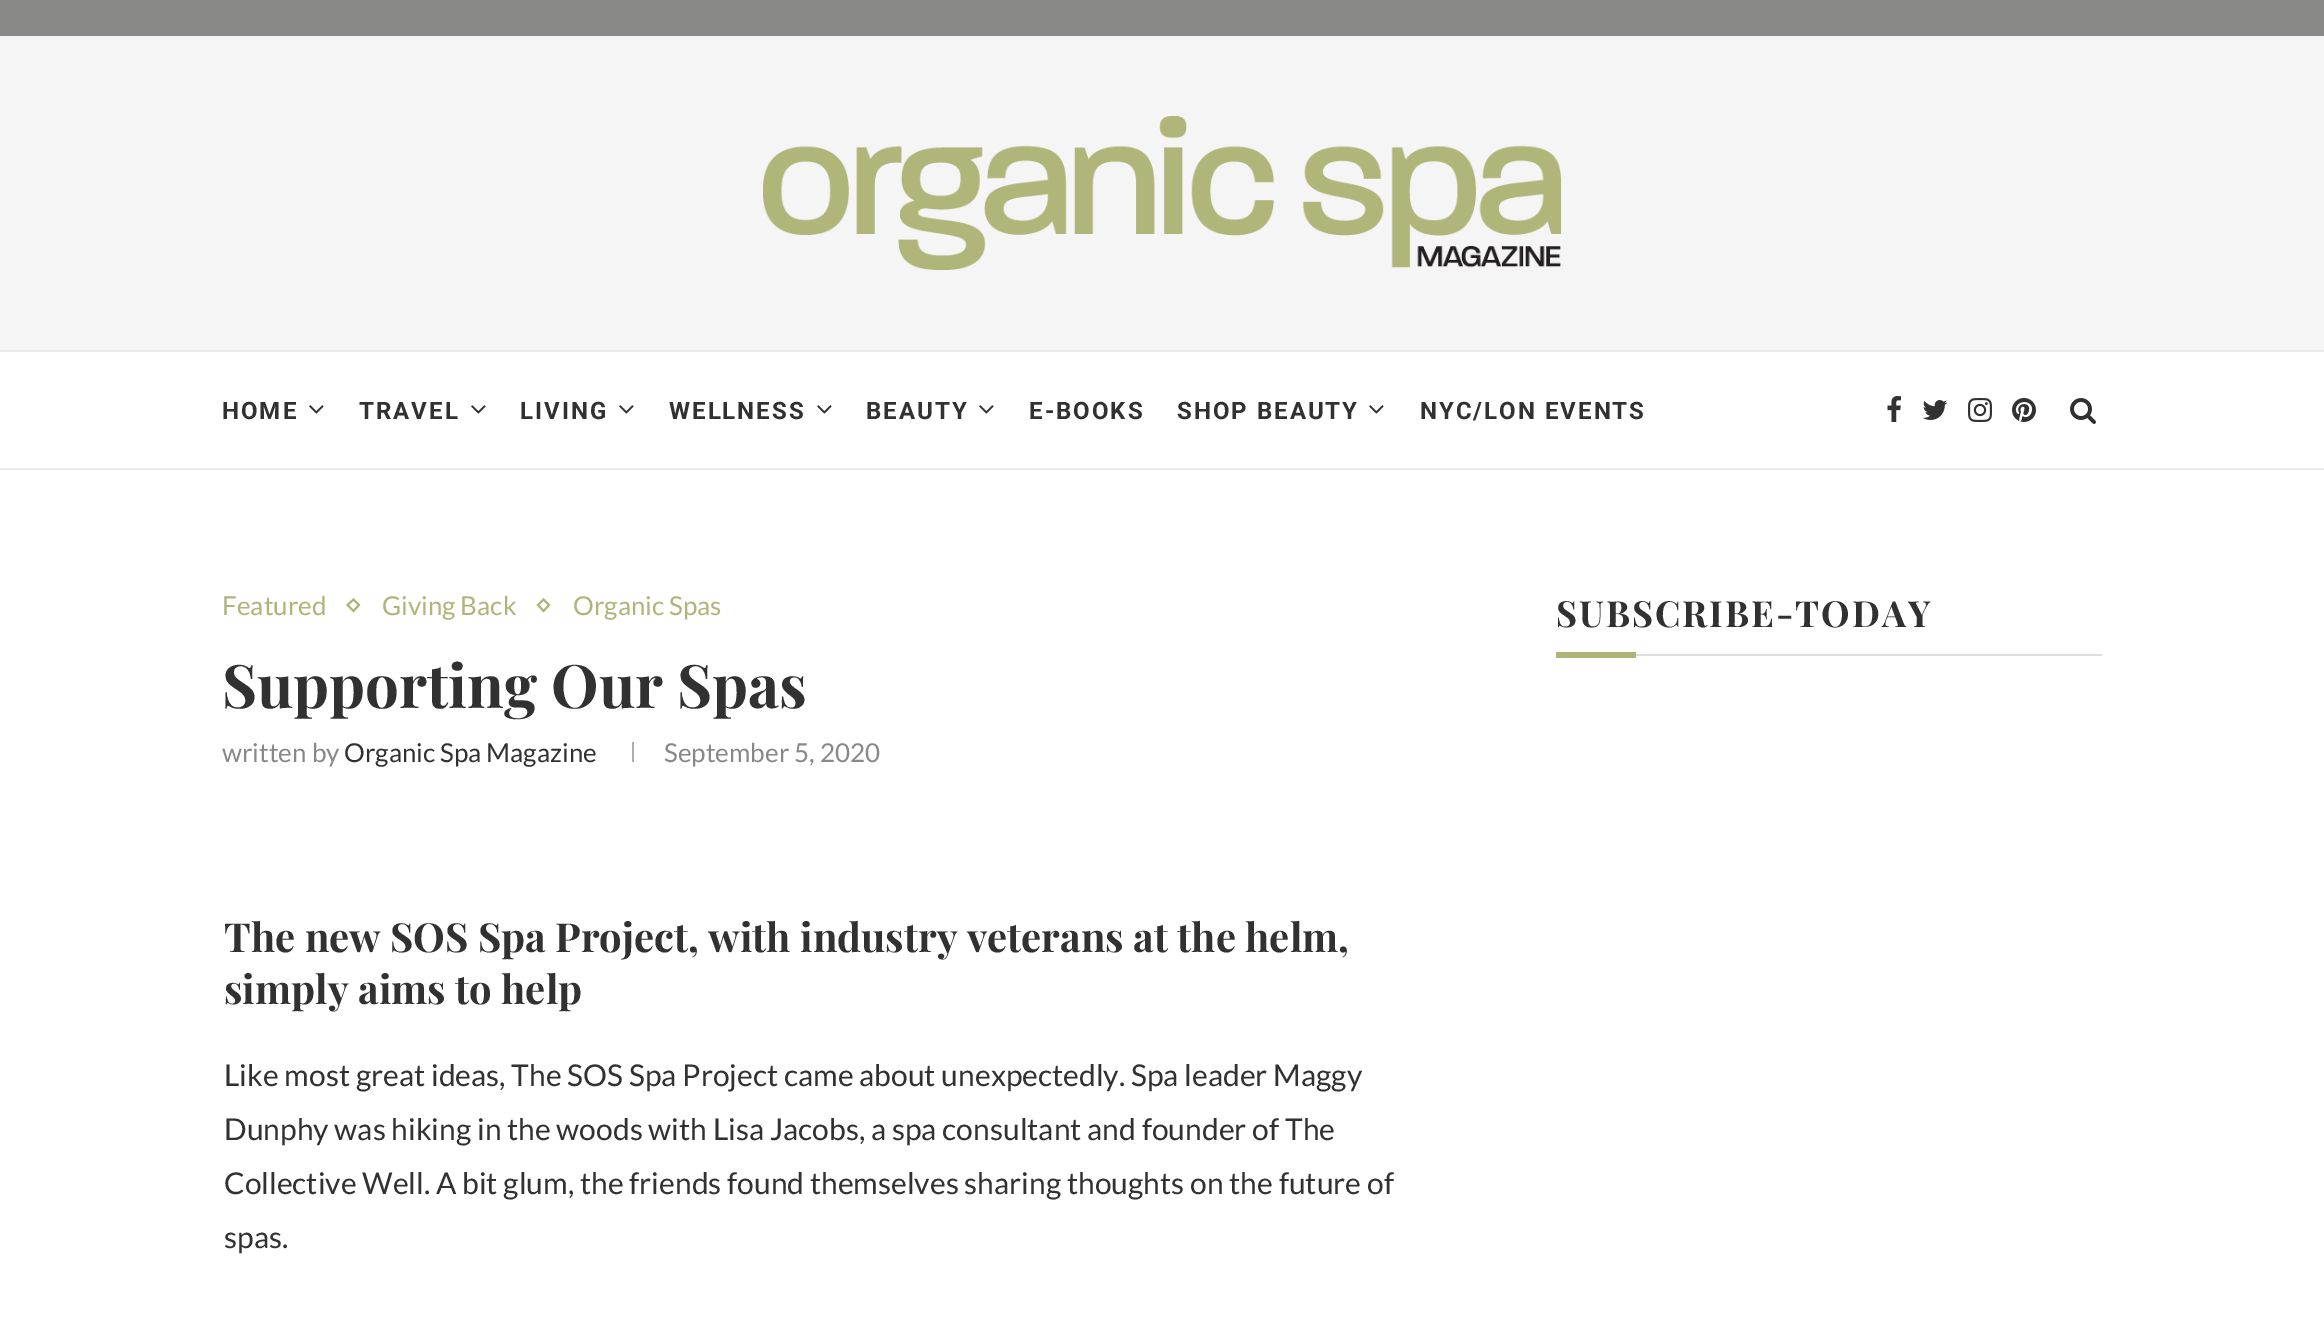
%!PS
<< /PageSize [2324 1322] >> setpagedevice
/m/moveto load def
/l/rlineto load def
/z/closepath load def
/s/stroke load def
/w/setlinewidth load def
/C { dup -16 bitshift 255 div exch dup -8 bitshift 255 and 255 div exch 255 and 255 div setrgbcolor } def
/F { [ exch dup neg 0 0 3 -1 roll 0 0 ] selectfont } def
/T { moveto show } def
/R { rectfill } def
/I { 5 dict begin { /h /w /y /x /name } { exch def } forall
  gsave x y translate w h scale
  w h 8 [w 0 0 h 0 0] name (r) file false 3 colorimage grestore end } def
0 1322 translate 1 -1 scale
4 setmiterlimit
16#FFFFFF C
0 0 2324 1322 R
16#898987 C
0 0 2324 36 R
16#F5F5F5 C
0 36 2324 314 R
(1.rgb) 763 116 799 154 I
16#ECECEC C
0 350 2324 2 R
0 468 2324 2 R
/Roboto-Bold 24 F
16#313131 C
222 419 m 2 0 (HOME) ashow
(2.rgb) 309 405 15 9 I
359 419 m 2 0 (TRAVEL) ashow
(2.rgb) 471 405 15 9 I
520 419 m 2 0 (LIVING) ashow
(2.rgb) 619 405 15 9 I
669 419 m 2 0 (WELLNESS) ashow
(2.rgb) 817 405 15 9 I
866 419 m 2 0 (BEAUTY) ashow
(2.rgb) 979 405 15 9 I
1029 419 m 2 0 (E-BOOKS) ashow
1177 419 m 2 0 (SHOP BEAUTY) ashow
(2.rgb) 1369 405 15 9 I
1420 419 m 2 0 (NYC/LON EVENTS) ashow
(3.rgb) 1887 396 14 26 I
(4.rgb) 1922 400 26 20 I
(5.rgb) 1968 398 24 24 I
(6.rgb) 2012 398 24 24 I
(7.rgb) 2070 398 26 26 I
/Lato-Regular 26 F
16#B0B478 C
(Featured) 222 615 T
2 w
353.5 599.5 m 5.5 5.5 l -5.5 6 l -6 -6 l z s
(Giving Back) 382 615 T
543.5 599.5 m 5.5 5.5 l -5.5 6 l -5.5 -6 l z s
(Organic Spas) 573 615 T
/PlayfairDisplay-Bold 60 F
16#313131 C
(Supporting Our Spas) 222 708 T
/Lato-Regular 26 F
16#888888 C
(written by) 222 762 T
16#313131 C
(Organic Spa Magazine) 344 762 T
16#ACACAC C
632 742 2 20 R
16#888888 C
(September 5, 2020) 664 762 T
/PlayfairDisplay-Bold 40 F
16#313131 C
(The new SOS Spa Project, with industry veterans at the helm,) 224 952 T
(simply aims to help) 224 1004 T
/Lato-Regular 30 F
(Like most great ideas, The SOS Spa Project came about unexpectedly. Spa leader Maggy) 224 1086 T
(Dunphy was hiking in the woods with Lisa Jacobs, a spa consultant and founder of The) 224 1140 T
(Collective Well. A bit glum, the friends found themselves sharing thoughts on the future of) 224 1194 T
(spas.) 224 1248 T
16#DEDEDE C
1636 654 466 2 R
/PlayfairDisplay-Bold 36 F
16#313131 C
1556 627 m 2 0 (SUBSCRIBE-TODAY) ashow
16#B0B478 C
1556 652 80 6 R
showpage
